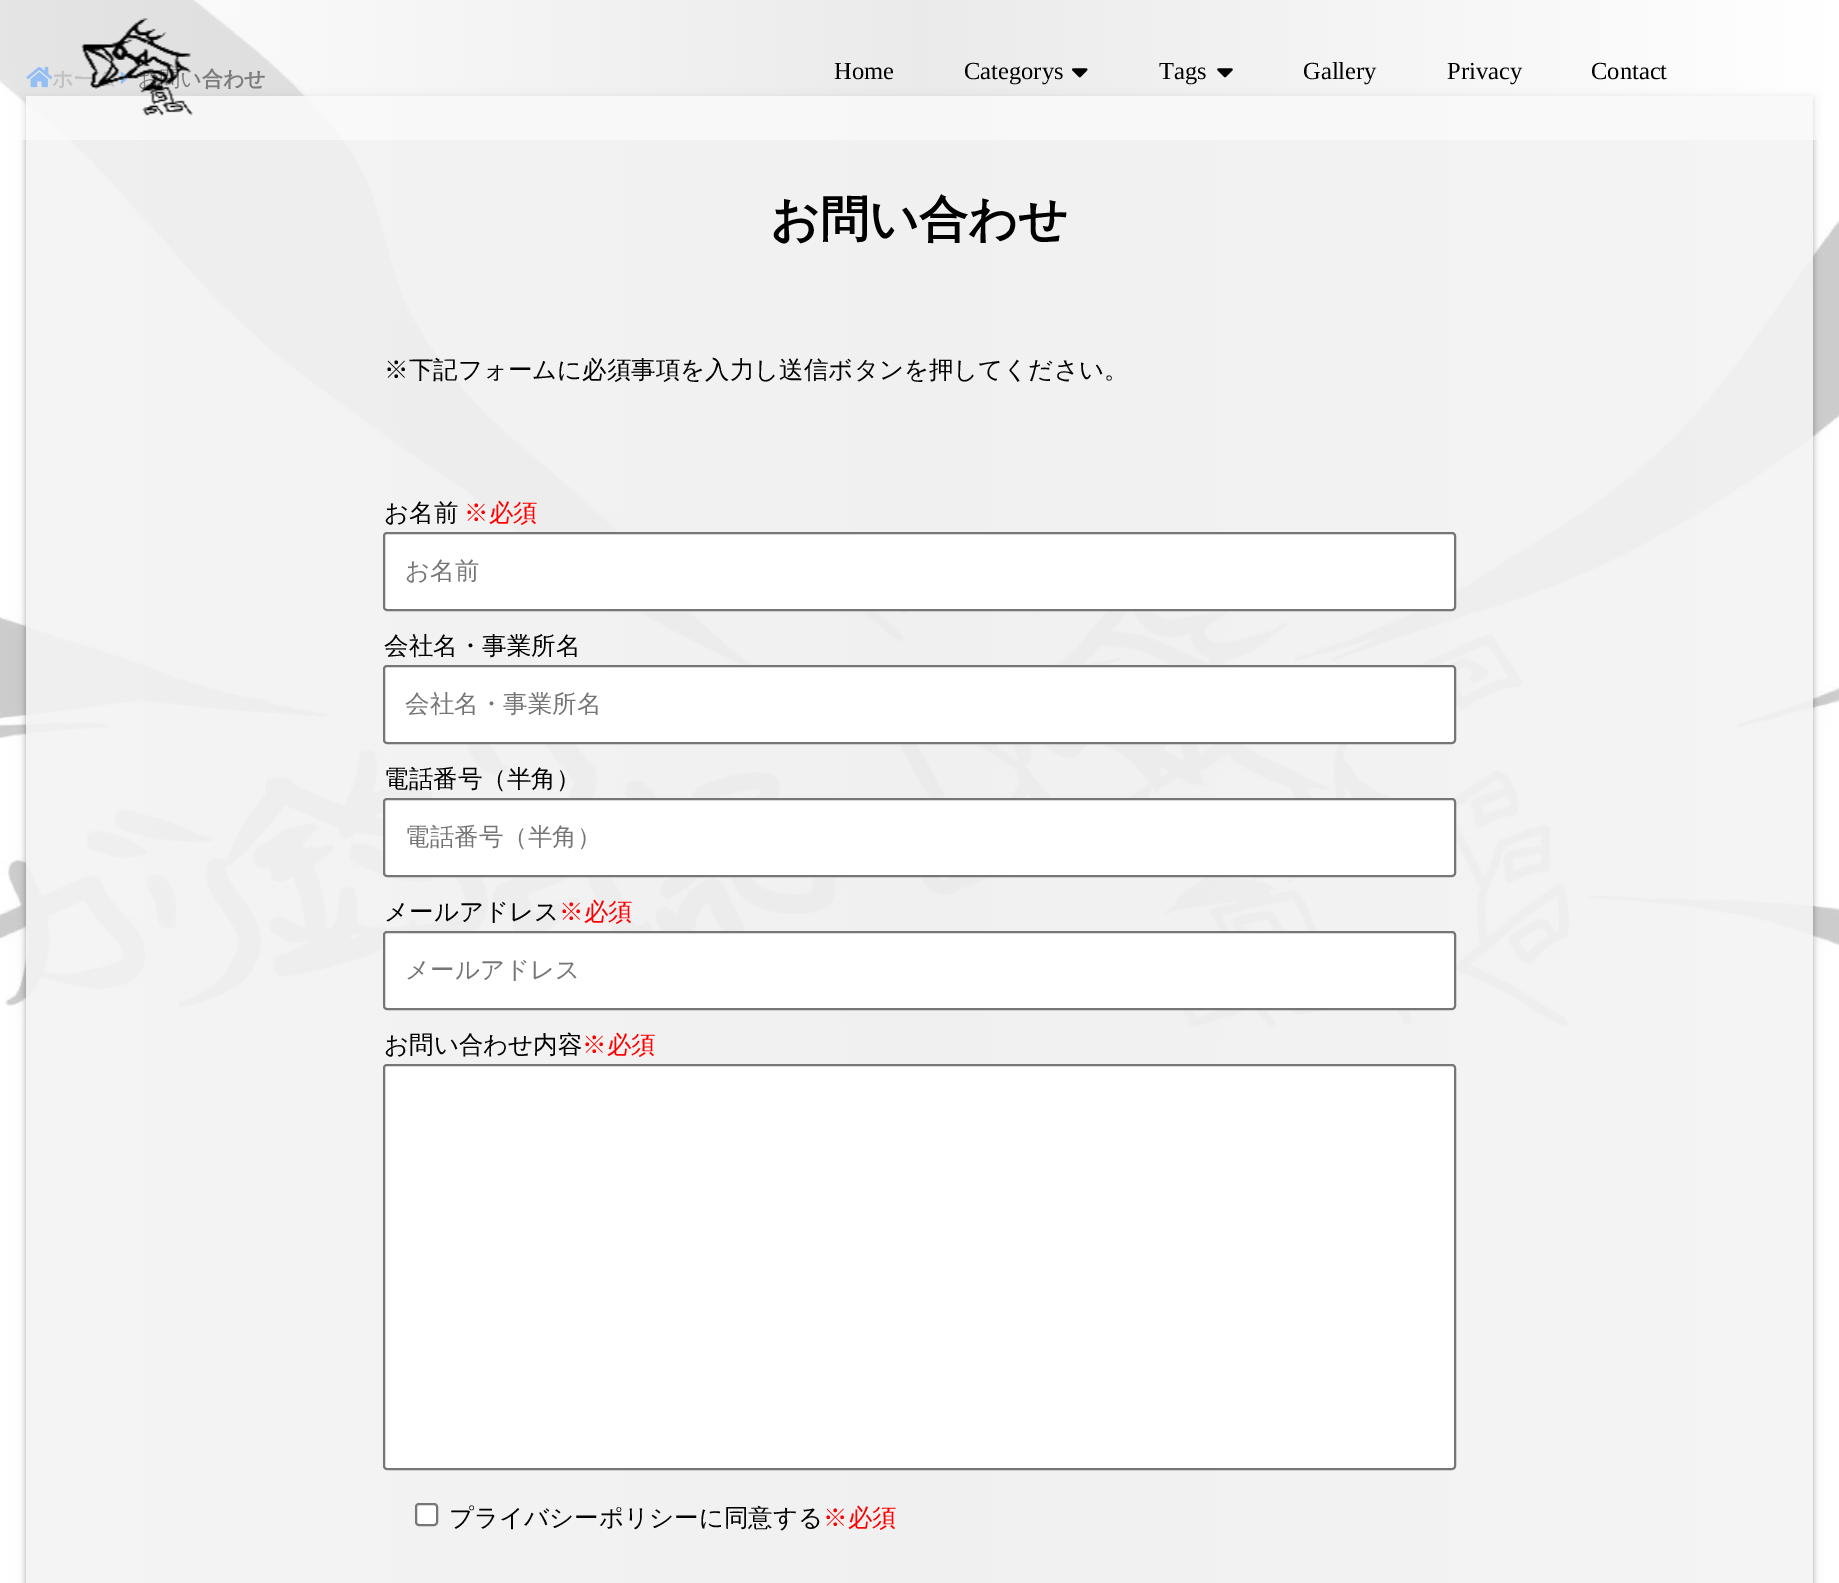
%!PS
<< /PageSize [1839 1583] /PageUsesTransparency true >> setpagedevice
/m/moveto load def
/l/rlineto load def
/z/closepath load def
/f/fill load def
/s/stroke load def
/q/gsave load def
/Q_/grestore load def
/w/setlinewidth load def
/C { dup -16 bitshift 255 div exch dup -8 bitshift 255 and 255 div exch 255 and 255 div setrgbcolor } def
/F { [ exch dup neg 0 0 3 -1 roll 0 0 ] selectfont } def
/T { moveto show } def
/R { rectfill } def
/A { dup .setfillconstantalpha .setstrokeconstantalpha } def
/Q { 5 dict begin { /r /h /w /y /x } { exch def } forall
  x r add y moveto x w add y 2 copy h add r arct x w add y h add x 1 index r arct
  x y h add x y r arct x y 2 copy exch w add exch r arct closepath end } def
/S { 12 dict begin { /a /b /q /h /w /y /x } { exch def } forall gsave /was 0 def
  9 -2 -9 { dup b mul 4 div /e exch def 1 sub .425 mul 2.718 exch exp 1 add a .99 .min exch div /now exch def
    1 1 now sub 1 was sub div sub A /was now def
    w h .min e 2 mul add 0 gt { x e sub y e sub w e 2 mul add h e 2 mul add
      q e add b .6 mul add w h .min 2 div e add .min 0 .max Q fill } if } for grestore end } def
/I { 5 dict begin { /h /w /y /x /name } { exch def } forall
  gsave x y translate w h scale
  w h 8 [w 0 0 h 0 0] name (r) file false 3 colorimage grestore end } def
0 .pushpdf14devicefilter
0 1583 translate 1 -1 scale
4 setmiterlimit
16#FFFFFF C
0 0 1839 1583 R
(1.rgb) 0 0 1839 1583 I
q
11 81 m 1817 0 l 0 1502 l -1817 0 l z 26 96 m 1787 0 l 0 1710 l -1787 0 l z eoclip newpath
16#000000 C
26 96 1787 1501 0 4.5 .12 S
Q_
(2.rgb) 26 67 27 21 I
/WenQuanYiZenHei-Bold 21 F
16#888888 C
(ホーム) 52 86 T
(3.rgb) 120 71 8 13 I
16#000000 C
(お問い合わせ) 138 86 T
q
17 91 m 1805 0 l 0 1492 l -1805 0 l z 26 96 m 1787 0 l 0 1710 l -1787 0 l z eoclip newpath
26 100 1787 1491 0 2.5 .22 S
Q_
0.9 A
16#F3F3F3 C
26 96 1787 1487 R
/WenQuanYiZenHei-Bold 49 F
1 A
16#000000 C
(お問い合わせ) 770 236 T
/WenQuanYiZenHei-Medium 24.5 F
(※下記フォームに必須事項を入力し送信ボタンを押してください。) 384 378 T
(お名前) 384 521 T
16#FF0000 C
(※必須) 464 521 T
16#FFFFFF C
384 533 1071 77 3 Q q f Q_
16#767676 C
2 w
s
16#757575 C
(お名前) 405 579 T
16#000000 C
(会社名・事業所名) 384 654 T
16#FFFFFF C
384 666 1071 77 3 Q q f Q_
16#767676 C
s
16#757575 C
(会社名・事業所名) 405 712 T
16#000000 C
(電話番号（半角）) 384 787 T
16#FFFFFF C
384 799 1071 77 3 Q q f Q_
16#767676 C
s
16#757575 C
(電話番号（半角）) 405 845 T
16#000000 C
(メールアドレス) 384 920 T
16#FF0000 C
(※必須) 559 920 T
16#FFFFFF C
384 932 1071 77 3 Q q f Q_
16#767676 C
s
16#757575 C
(メールアドレス) 405 978 T
16#000000 C
(お問い合わせ内容) 384 1053 T
16#FF0000 C
(※必須) 582 1053 T
16#FFFFFF C
384 1065 1071 404 3 Q q f Q_
16#767676 C
s
16#FFFFFF C
416 1504 21 21 3 Q q f Q_
16#767676 C
s
16#000000 C
(プライバシーポリシーに同意する) 449 1526 T
16#FF0000 C
(※必須) 823 1526 T
0.49 A
16#FFFFFF C
0 0 1818 140 R
1 A
(4.rgb) 81 18 112 98 I
/LiberationSerif-Regular 24.5 F
16#000000 C
(Home) 834 79 T
(Categorys) 964 79 T
(5.rgb) 1072 68 16 10 I
(Tags) 1159 79 T
(6.rgb) 1217 68 16 10 I
(Gallery) 1303 79 T
(Privacy) 1447 79 T
(Contact) 1591 79 T
.poppdf14devicefilter showpage
